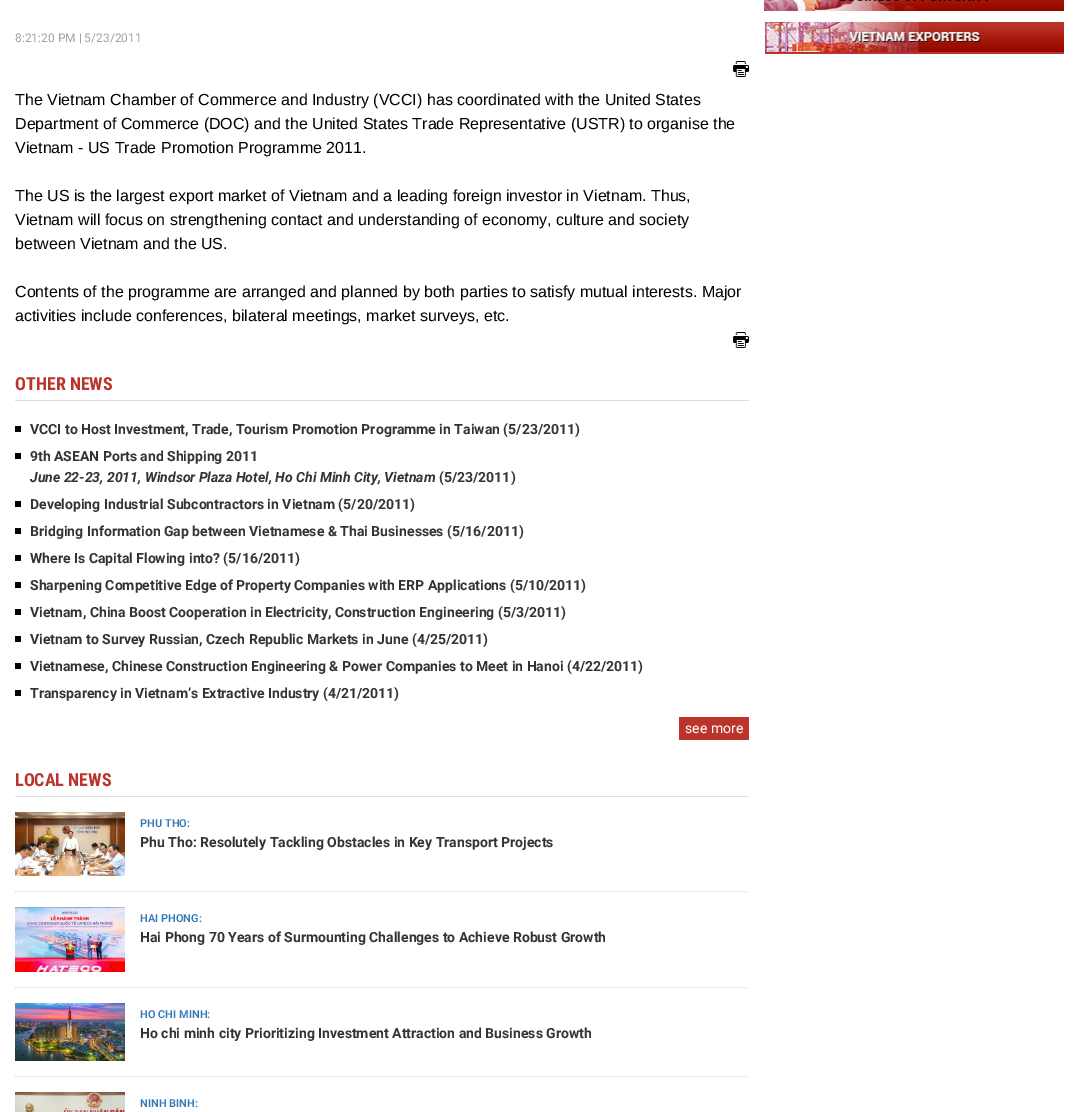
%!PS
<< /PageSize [1079 1112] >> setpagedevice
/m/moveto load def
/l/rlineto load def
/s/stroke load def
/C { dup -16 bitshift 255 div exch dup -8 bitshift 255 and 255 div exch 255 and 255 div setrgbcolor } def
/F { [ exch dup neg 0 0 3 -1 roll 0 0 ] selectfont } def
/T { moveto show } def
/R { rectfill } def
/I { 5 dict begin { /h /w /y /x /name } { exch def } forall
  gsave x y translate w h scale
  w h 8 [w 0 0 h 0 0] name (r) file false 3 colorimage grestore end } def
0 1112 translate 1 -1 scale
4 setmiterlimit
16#FFFFFF C
0 0 1079 1112 R
(1.rgb) 764 0 300 11 I
(2.rgb) 764 21 300 33 I
/Roboto-Regular 12 F
16#A2A2A2 C
(8:21:20 PM | 5/23/2011) 15 42 T
(3.rgb) 733 61 16 16 I
/LiberationSans-Regular 16 F
16#000000 C
(The Vietnam Chamber of Commerce and Industry \(VCCI\) has coordinated with the United States) 15 105 T
(Department of Commerce \(DOC\) and the United States Trade Representative \(USTR\) to organise the) 15 129 T
(Vietnam - US Trade Promotion Programme 2011.) 15 153 T
(The US is the largest export market of Vietnam and a leading foreign investor in Vietnam. Thus,) 15 201 T
(Vietnam will focus on strengthening contact and understanding of economy, culture and society) 15 225 T
(between Vietnam and the US.) 15 249 T
(Contents of the programme are arranged and planned by both parties to satisfy mutual interests. Major) 15 297 T
(activities include conferences, bilateral meetings, market surveys, etc.) 15 321 T
(3.rgb) 733 332 16 16 I
16#DEDEDE C
15 400 734 1 R
/RobotoCondensed-Bold 18 F
16#BB342C C
(OTHER NEWS) 15 390 T
16#000000 C
15 426 6 6 R
/Roboto-Bold 14 F
16#333333 C
(VCCI to Host Investment, Trade, Tourism Promotion Programme in Taiwan \(5/23/2011\)) 30 434 T
16#000000 C
15 453 6 6 R
16#333333 C
(9th ASEAN Ports and Shipping 2011) 30 461 T
/Roboto-BoldItalic 14 F
(June 22-23, 2011, Windsor Plaza Hotel, Ho Chi Minh City, Vietnam) 30 482 T
/Roboto-Bold 14 F
(\(5/23/2011\)) 439 482 T
16#000000 C
15 501 6 6 R
16#333333 C
(Developing Industrial Subcontractors in Vietnam \(5/20/2011\)) 30 509 T
16#000000 C
15 528 6 6 R
16#333333 C
(Bridging Information Gap between Vietnamese & Thai Businesses \(5/16/2011\)) 30 536 T
16#000000 C
15 555 6 6 R
16#333333 C
(Where Is Capital Flowing into? \(5/16/2011\)) 30 563 T
16#000000 C
15 582 6 6 R
16#333333 C
(Sharpening Competitive Edge of Property Companies with ERP Applications \(5/10/2011\)) 30 590 T
16#000000 C
15 609 6 6 R
16#333333 C
(Vietnam, China Boost Cooperation in Electricity, Construction Engineering \(5/3/2011\)) 30 617 T
16#000000 C
15 636 6 6 R
16#333333 C
(Vietnam to Survey Russian, Czech Republic Markets in June \(4/25/2011\)) 30 644 T
16#000000 C
15 663 6 6 R
16#333333 C
(Vietnamese, Chinese Construction Engineering & Power Companies to Meet in Hanoi \(4/22/2011\)) 30 671 T
16#000000 C
15 690 6 6 R
16#333333 C
(Transparency in Vietnam’s Extractive Industry \(4/21/2011\)) 30 698 T
16#BB342C C
679 717 70 23 R
/Roboto-Regular 14 F
16#FFFFFF C
(see more) 685 733 T
16#DEDEDE C
15 796 734 1 R
/RobotoCondensed-Bold 18 F
16#BB342C C
(LOCAL NEWS) 15 786 T
16#DEDEDE C
[1 1] 0 setdash
15 891.5 m 734 0 l s
(4.rgb) 15 812 110 64 I
/Roboto-SemiBold 11 F
16#337AB7 C
(PHU THO:) 140 827 T
/Roboto-Bold 14 F
16#333333 C
(Phu Tho: Resolutely Tackling Obstacles in Key Transport Projects) 140 847 T
16#DEDEDE C
15 987.5 m 734 0 l s
(5.rgb) 15 907 110 65 I
/Roboto-SemiBold 11 F
16#337AB7 C
(HAI PHONG:) 140 922 T
/Roboto-Bold 14 F
16#333333 C
(Hai Phong 70 Years of Surmounting Challenges to Achieve Robust Growth) 140 942 T
16#DEDEDE C
15 1076.5 m 734 0 l s
(6.rgb) 15 1003 110 58 I
/Roboto-SemiBold 11 F
16#337AB7 C
(HO CHI MINH:) 140 1018 T
/Roboto-Bold 14 F
16#333333 C
(Ho chi minh city Prioritizing Investment Attraction and Business Growth) 140 1038 T
(7.rgb) 15 1092 110 20 I
/Roboto-SemiBold 11 F
16#337AB7 C
(NINH BINH:) 140 1107 T
showpage
